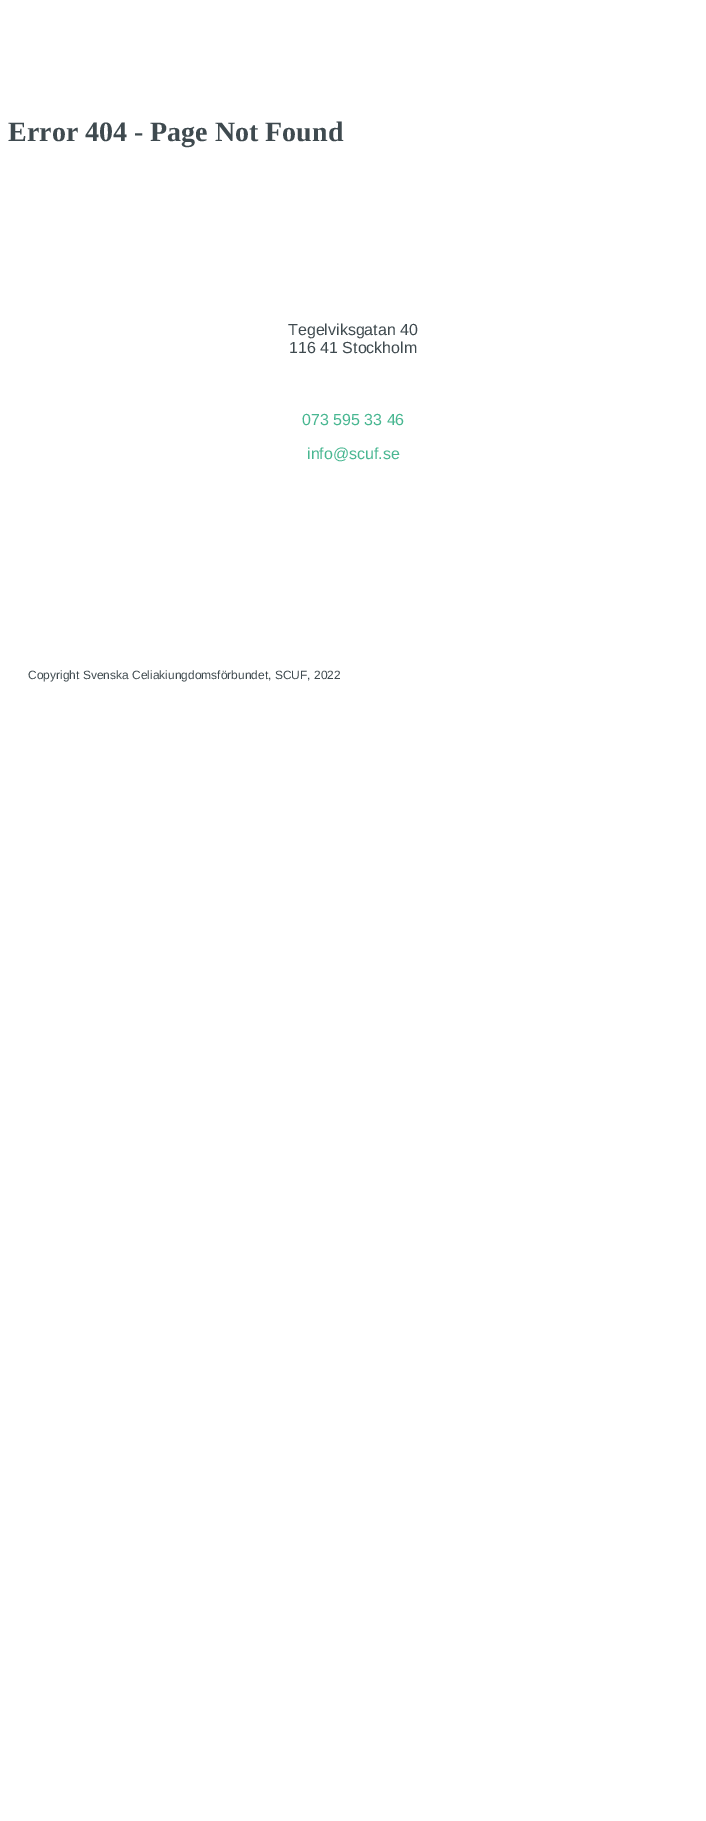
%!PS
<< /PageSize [706 1821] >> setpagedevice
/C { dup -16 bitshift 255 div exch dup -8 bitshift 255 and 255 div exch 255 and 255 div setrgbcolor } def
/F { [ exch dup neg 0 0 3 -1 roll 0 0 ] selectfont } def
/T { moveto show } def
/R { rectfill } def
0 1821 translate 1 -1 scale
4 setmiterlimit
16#FFFFFF C
0 0 706 1821 R
/LiberationSerif-Bold 28 F
16#3F4A4F C
(Error 404 - Page Not Found) 8 141 T
/LiberationSans-Regular 16 F
(Tegelviksgatan 40) 288 335 T
(116 41 Stockholm) 289 353 T
16#48B791 C
(073 595 33 46) 302 425 T
(info@scuf.se) 307 459 T
/LiberationSans-Regular 12 F
16#3F4A4F C
(Copyright Svenska Celiakiungdomsförbundet, SCUF, 2022) 28 679 T
showpage
